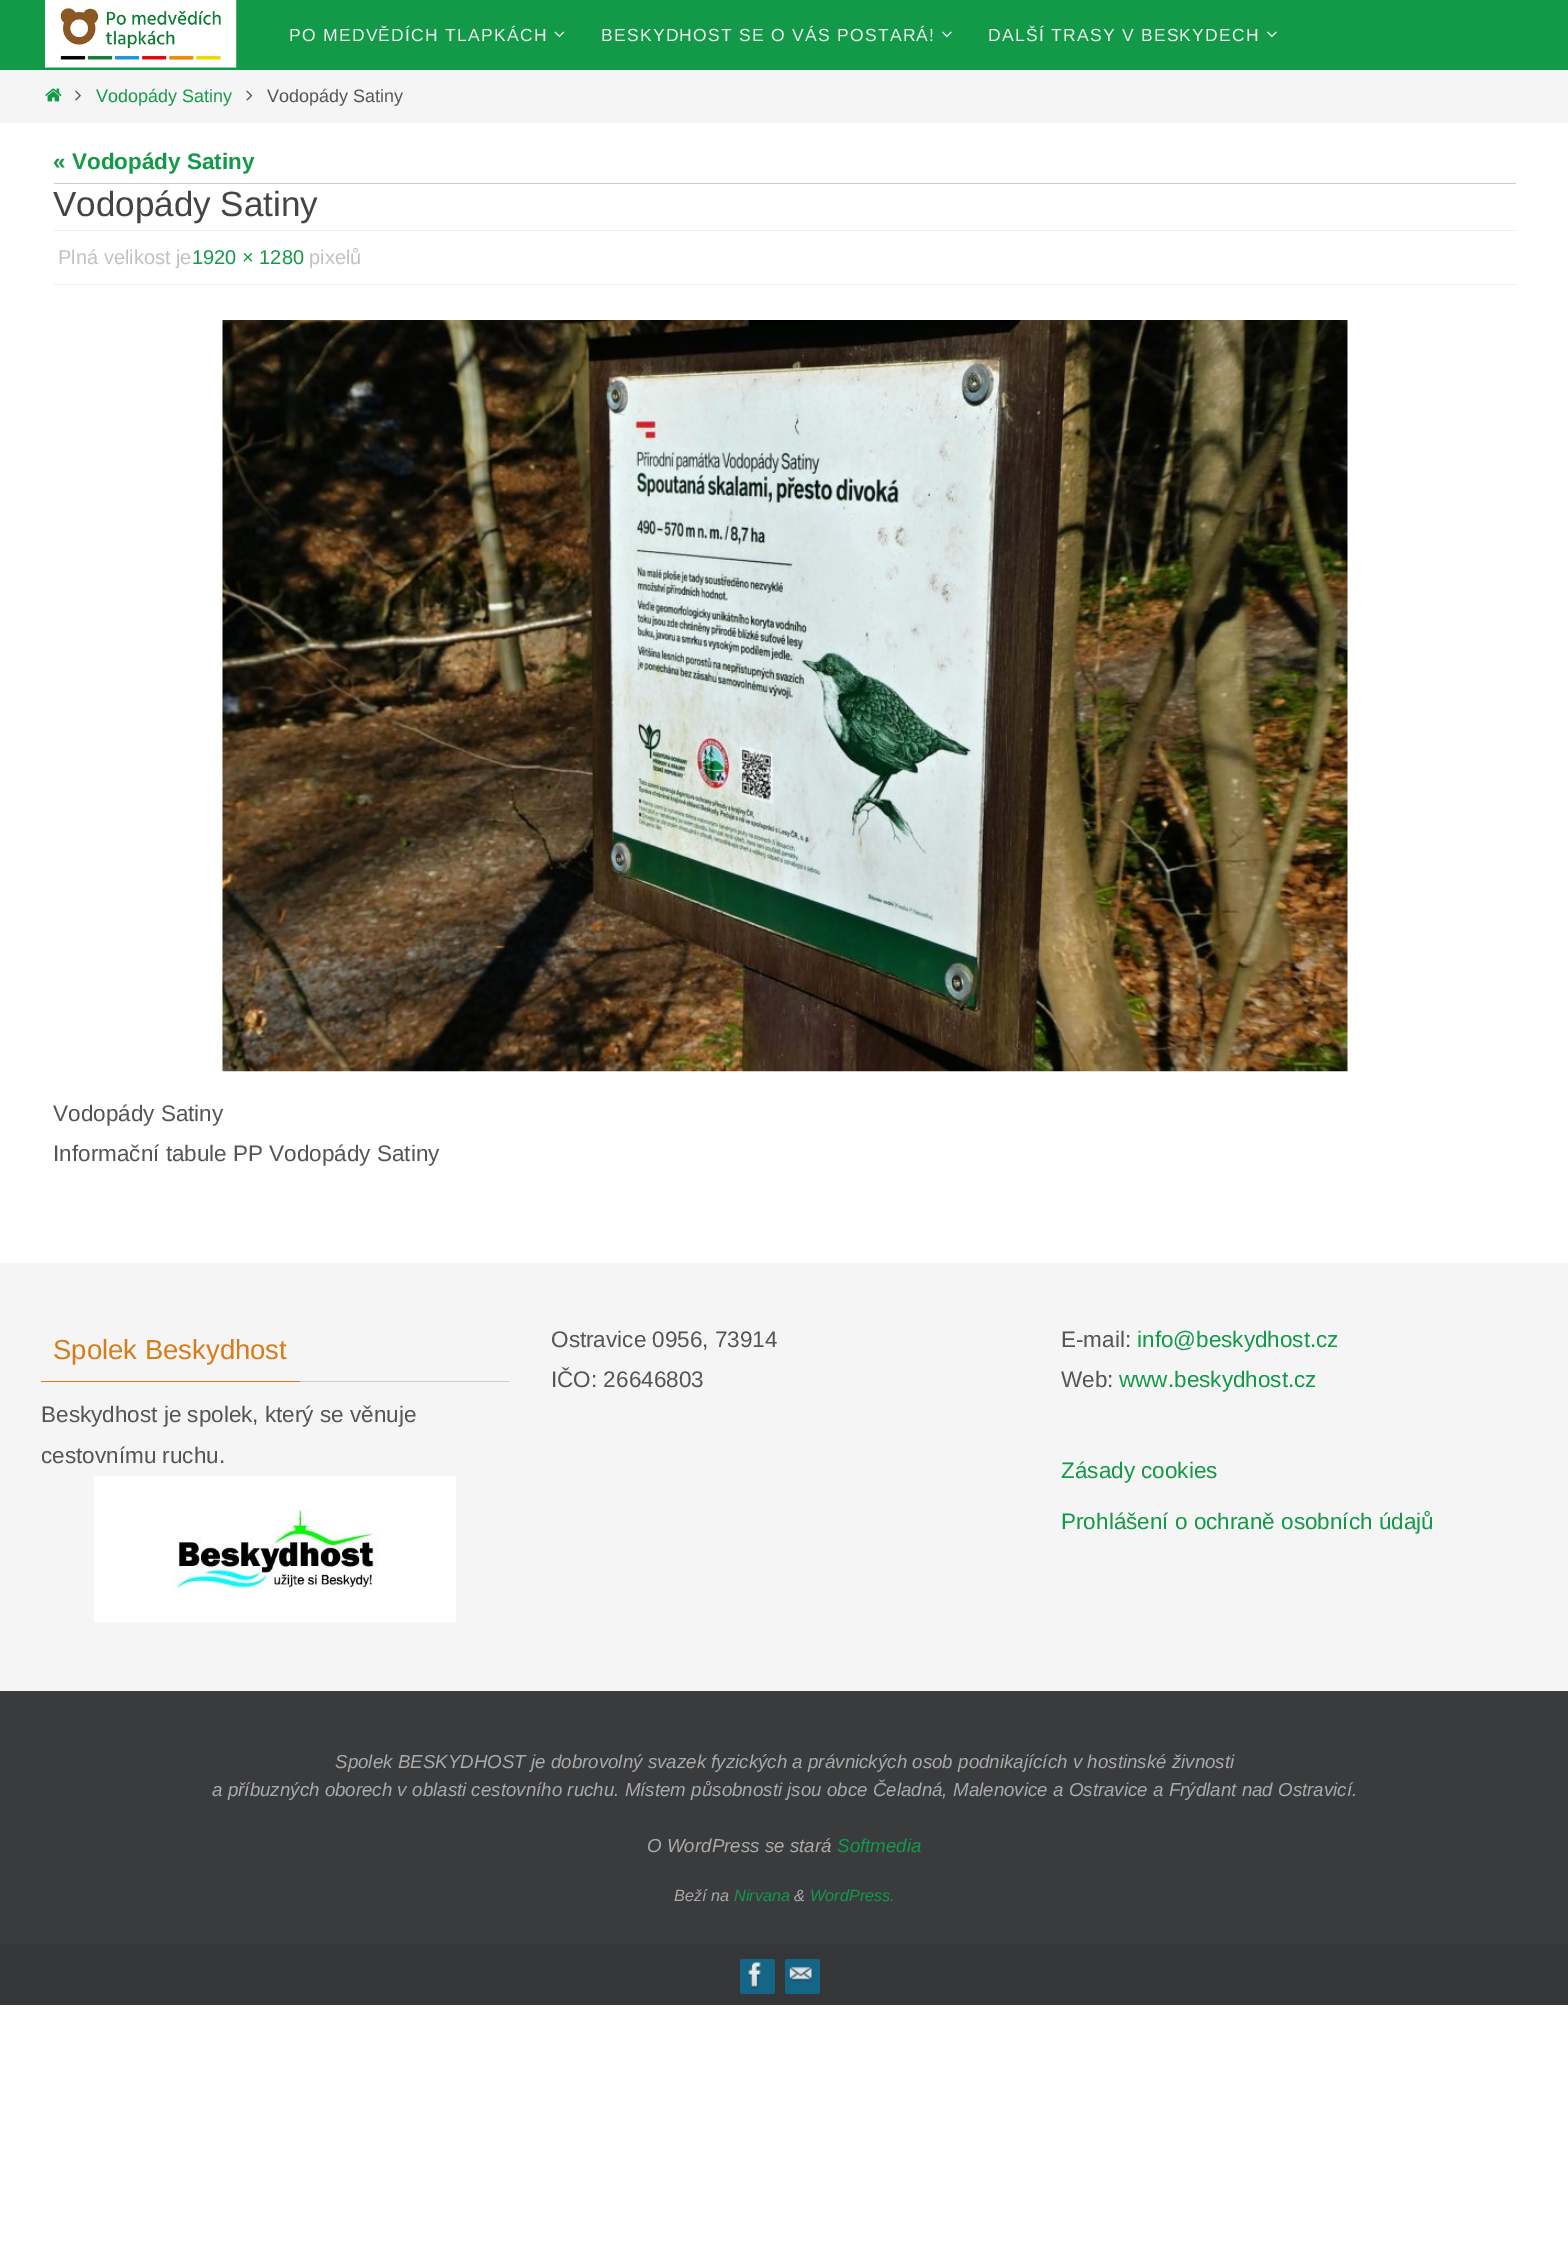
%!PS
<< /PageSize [1568 2250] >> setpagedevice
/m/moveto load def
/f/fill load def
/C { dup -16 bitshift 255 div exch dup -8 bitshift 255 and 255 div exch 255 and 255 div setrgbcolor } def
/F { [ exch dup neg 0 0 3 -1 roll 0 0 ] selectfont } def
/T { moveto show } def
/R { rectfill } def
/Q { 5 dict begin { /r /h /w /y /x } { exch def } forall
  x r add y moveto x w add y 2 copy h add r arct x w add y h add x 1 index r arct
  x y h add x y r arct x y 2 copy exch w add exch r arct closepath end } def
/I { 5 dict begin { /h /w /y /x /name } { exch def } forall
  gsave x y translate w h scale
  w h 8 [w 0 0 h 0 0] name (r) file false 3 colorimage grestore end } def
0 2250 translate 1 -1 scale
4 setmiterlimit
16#FFFFFF C
0 0 1568 2250 R
16#129A48 C
0 0 1568 70 R
(1.rgb) 45 0 192 68 I
/LiberationSans-Regular 17.5 F
16#EEEEEE C
289 41 m 1.25 0 (PO MEDVĚDÍCH TLAPKÁCH) ashow
(2.rgb) 554 31 11 7 I
601 41 m 1.25 0 (BESKYDHOST SE O VÁS POSTARÁ!) ashow
(3.rgb) 942 31 10 7 I
988 41 m 1.25 0 (DALŠÍ TRASY V BESKYDECH) ashow
(3.rgb) 1267 31 10 7 I
16#F5F5F5 C
0 70 1568 53 R
(4.rgb) 45 88 17 14 I
(5.rgb) 75 90 6 11 I
/LiberationSans-Regular 18 F
16#129A48 C
(Vodopády Satiny) 96 102 T
(6.rgb) 246 90 7 11 I
16#555555 C
(Vodopády Satiny) 267 102 T
16#CCCCCC C
54 183 1462 1 R
/LiberationSans-Bold 22.5 F
16#129A48 C
(« Vodopády Satiny) 53 169 T
/LiberationSans-Regular 35 F
16#444444 C
(Vodopády Satiny) 53 216 T
16#EEEEEE C
54 230 1462 1 R
54 284 1462 1 R
/LiberationSans-Regular 20 F
16#C1C1C1 C
(Plná velikost je) 58 264 T
16#129A48 C
(1920 × 1280) 192 264 T
16#C1C1C1 C
(pixelů) 309 264 T
(7.rgb) 222 320 1126 752 I
/LiberationSans-Regular 22.5 F
16#555555 C
(Vodopády Satiny) 53 1121 T
(Informační tabule PP Vodopády Satiny) 53 1161 T
16#F5F5F5 C
0 1263 1568 428 R
16#CCCCCC C
300 1381 209 1 R
16#D67D19 C
41 1381 259 1 R
/LiberationSans-Regular 27.5 F
(Spolek Beskydhost) 53 1359 T
/LiberationSans-Regular 22.5 F
16#555555 C
(Beskydhost je spolek, který se věnuje) 41 1422 T
(cestovnímu ruchu.) 41 1463 T
(8.rgb) 94 1476 362 147 I
(Ostravice 0956, 73914) 551 1347 T
(IČO: 26646803) 551 1387 T
(E-mail:) 1061 1347 T
16#129A48 C
(info@beskydhost.cz) 1137 1347 T
16#555555 C
(Web:) 1061 1387 T
16#129A48 C
(www.beskydhost.cz) 1119 1387 T
(Zásady cookies) 1061 1478 T
(Prohlášení o ochraně osobních údajů) 1061 1529 T
16#3A3B3D C
0 1691 1568 253 R
/LiberationSans-Italic 18.75 F
16#AAAAAA C
(Spolek BESKYDHOST je dobrovolný svazek fyzických a právnických osob podnikajících v hostinské živnosti) 335 1768 T
(a příbuzných oborech v oblasti cestovního ruchu. Místem působnosti jsou obce Čeladná, Malenovice a Ostravice a Frýdlant nad Ostravicí.) 212 1796 T
(O WordPress se stará) 647 1852 T
16#129A48 C
(Softmedia) 837 1852 T
/LiberationSans-Italic 16.25 F
16#AAAAAA C
(Beží na) 674 1901 T
16#129A48 C
(Nirvana) 734 1901 T
16#AAAAAA C
(&) 794 1901 T
16#129A48 C
(WordPress.) 810 1901 T
16#353638 C
0 1944 1568 61 R
16#156587 C
740 1959 35 35 2.5 Q f
(9.rgb) 747 1962 14 27 I
785 1959 35 35 2.5 Q f
(10.rgb) 788 1967 25 15 I
showpage
